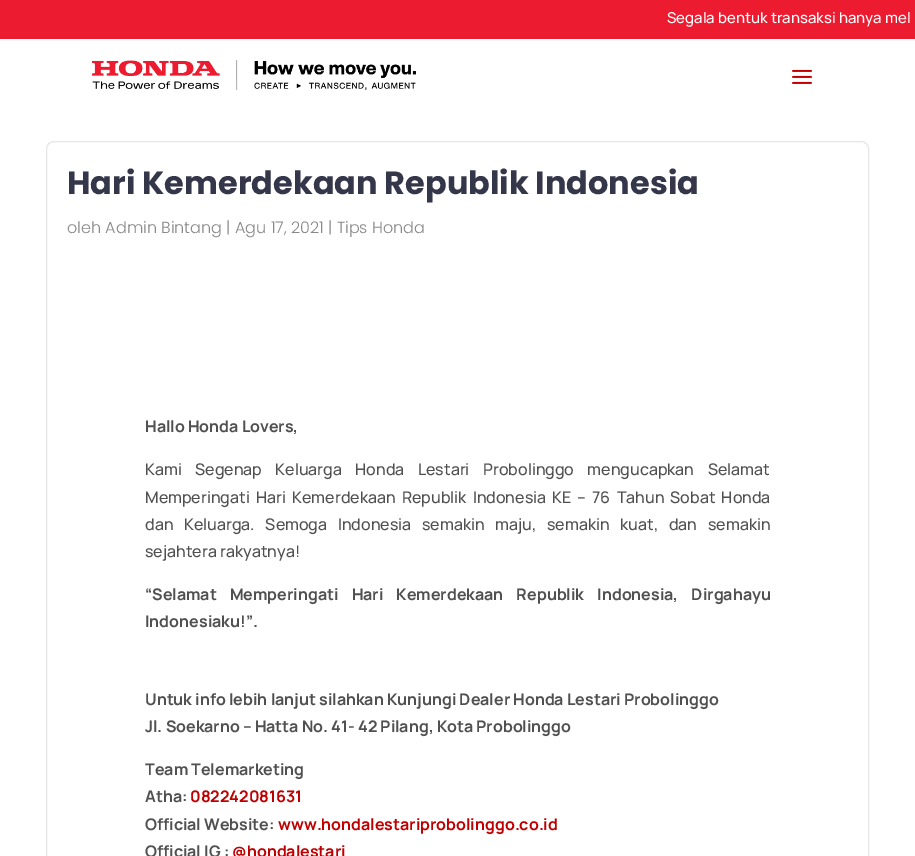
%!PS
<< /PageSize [915 856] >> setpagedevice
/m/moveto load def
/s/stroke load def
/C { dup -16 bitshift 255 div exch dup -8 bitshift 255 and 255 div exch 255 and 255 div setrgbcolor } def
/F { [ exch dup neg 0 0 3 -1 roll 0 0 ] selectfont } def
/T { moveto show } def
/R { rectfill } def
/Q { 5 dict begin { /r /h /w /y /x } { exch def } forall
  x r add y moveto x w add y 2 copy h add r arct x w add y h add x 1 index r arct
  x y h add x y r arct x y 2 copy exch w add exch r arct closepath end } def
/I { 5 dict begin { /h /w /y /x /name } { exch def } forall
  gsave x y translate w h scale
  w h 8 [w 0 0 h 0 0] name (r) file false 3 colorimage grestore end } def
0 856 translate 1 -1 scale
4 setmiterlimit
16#FFFFFF C
0 0 915 856 R
16#ED1B2F C
0 0 915 39 R
/Manrope-Medium 15 F
16#FFFFFF C
(Segala bentuk transaksi hanya mel) 667 23 T
(1.rgb) 92 60 324 30 I
(2.rgb) 792 69 20 15 I
16#E5E5E5 C
46.5 141.5 822 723 7.5 Q s
/Poppins-Bold 32 F
16#34364A C
(Hari Kemerdekaan Republik Indonesia) 67 194 T
/Poppins-Light 16 F
16#888888 C
(oleh Admin Bintang | Agu 17, 2021 | Tips Honda) 67 233 T
/Manrope-Bold 16 F
16#505050 C
(Hallo Honda Lovers,) 145 432 T
/Manrope-Medium 16 F
145 475 m 10.25 0 32 (Kami Segenap Keluarga Honda Lestari Probolinggo mengucapkan Selamat) widthshow
145 503 m 3 0 32 (Memperingati Hari Kemerdekaan Republik Indonesia KE – 76 Tahun Sobat Honda) widthshow
145 530 m 7.5 0 32 (dan Keluarga. Semoga Indonesia semakin maju, semakin kuat, dan semakin) widthshow
(sejahtera rakyatnya!) 145 557 T
/Manrope-Bold 16 F
145 600 m 10 0 32 (“Selamat Memperingati Hari Kemerdekaan Republik Indonesia, Dirgahayu) widthshow
(Indonesiaku!”.) 145 627 T
(Untuk info lebih lanjut silahkan Kunjungi Dealer Honda Lestari Probolinggo) 145 705 T
(Jl. Soekarno – Hatta No. 41- 42 Pilang, Kota Probolinggo) 145 732 T
(Team Telemarketing) 145 775 T
(Atha:) 145 802 T
16#C00000 C
(082242081631) 190 802 T
16#505050 C
(Official Website:) 145 830 T
16#C00000 C
(www.hondalestariprobolinggo.co.id) 278 830 T
16#505050 C
(Official IG :) 145 857 T
16#C00000 C
(@hondalestari) 232 857 T
showpage
